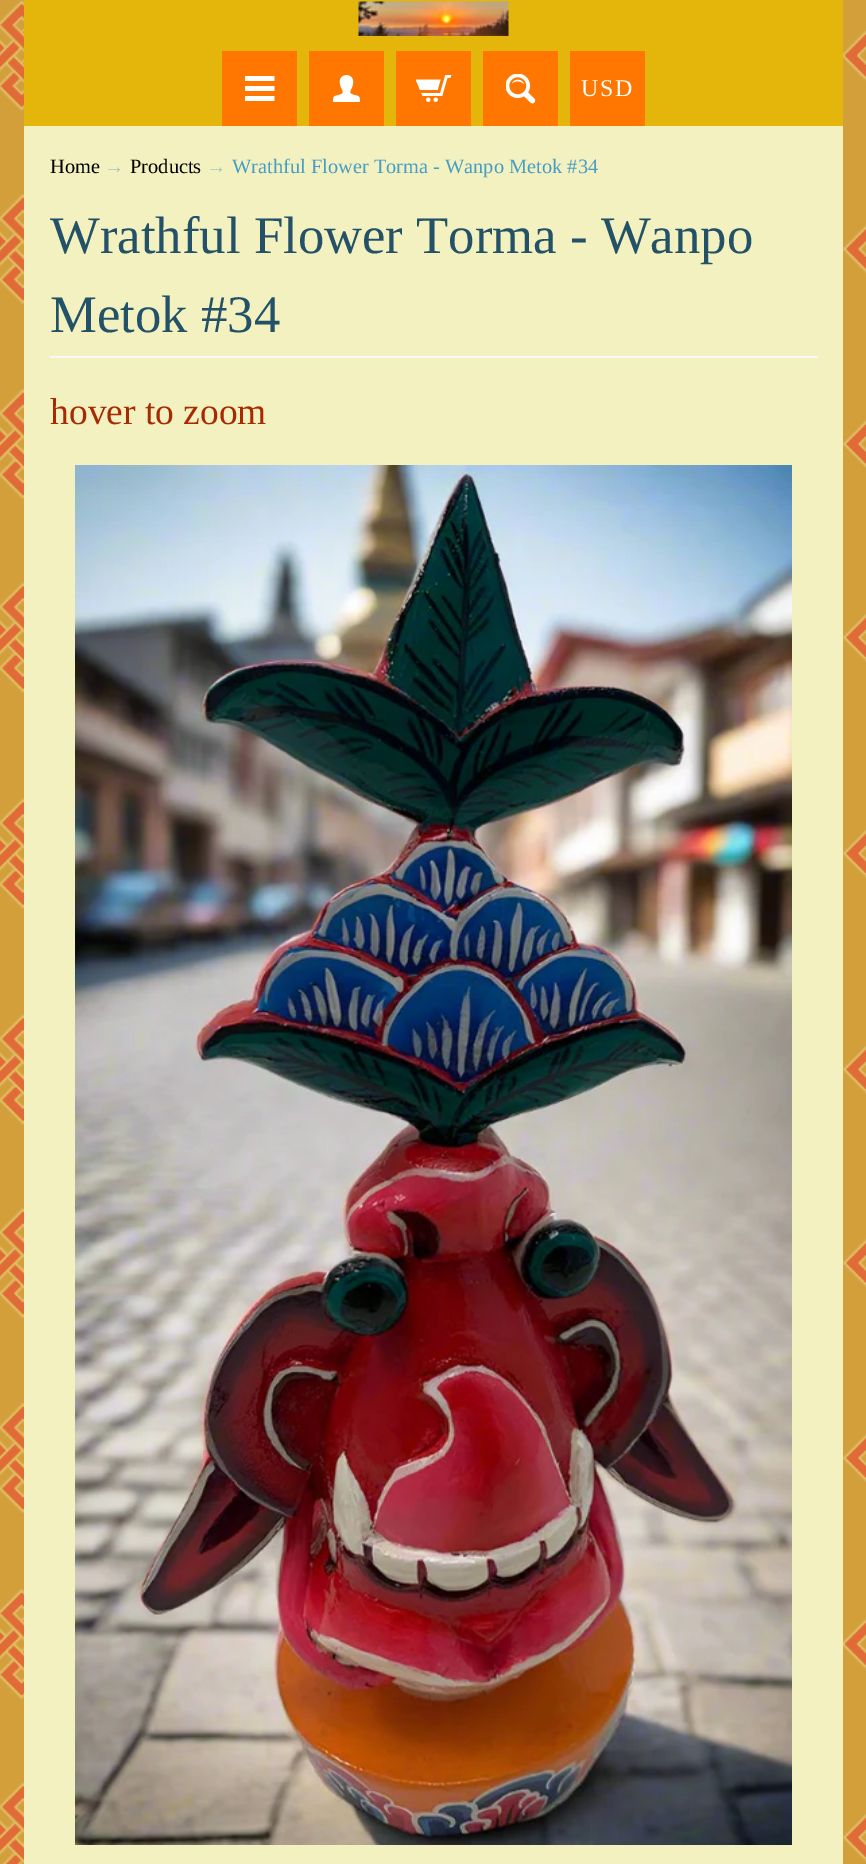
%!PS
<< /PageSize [866 1864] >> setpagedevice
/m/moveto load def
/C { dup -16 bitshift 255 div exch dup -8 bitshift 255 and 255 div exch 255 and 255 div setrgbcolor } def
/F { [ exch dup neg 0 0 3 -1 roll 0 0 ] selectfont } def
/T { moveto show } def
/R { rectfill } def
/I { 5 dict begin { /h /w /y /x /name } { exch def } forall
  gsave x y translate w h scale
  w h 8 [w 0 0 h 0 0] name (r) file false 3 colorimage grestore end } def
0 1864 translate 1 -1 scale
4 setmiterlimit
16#D29F3B C
0 0 866 1864 R
(1.rgb) 0 0 866 1864 I
16#E4B60C C
24 0 819 126 R
(2.rgb) 358 1 151 35 I
16#FF7700 C
222 51 75 75 R
(3.rgb) 245 76 30 25 I
309 51 75 75 R
(4.rgb) 333 75 27 27 I
396 51 75 75 R
(5.rgb) 416 75 36 27 I
483 51 75 75 R
(6.rgb) 506 74 30 30 I
570 51 75 75 R
/LiberationSerif-Regular 24 F
16#FFFFFF C
581 96 m 1.5 0 (USD) ashow
16#F4F1C0 C
24 126 819 1738 R
/LiberationSerif-Regular 20.4 F
16#000000 C
(Home) 50 173 T
16#9DC7C3 C
(→) 104 173 T
16#000000 C
(Products) 130 173 T
16#9DC7C3 C
(→) 206 173 T
16#469DC5 C
(Wrathful Flower Torma - Wanpo Metok #34) 232 173 T
16#F9F7F7 C
50 356 768 2 R
/LiberationSerif-Regular 52.75 F
16#235268 C
(Wrathful Flower Torma - Wanpo) 50 253 T
(Metok #34) 50 332 T
/LiberationSerif-Regular 37.5 F
16#A72A02 C
(hover to zoom) 50 424 T
(7.rgb) 75 465 717 1380 I
showpage
